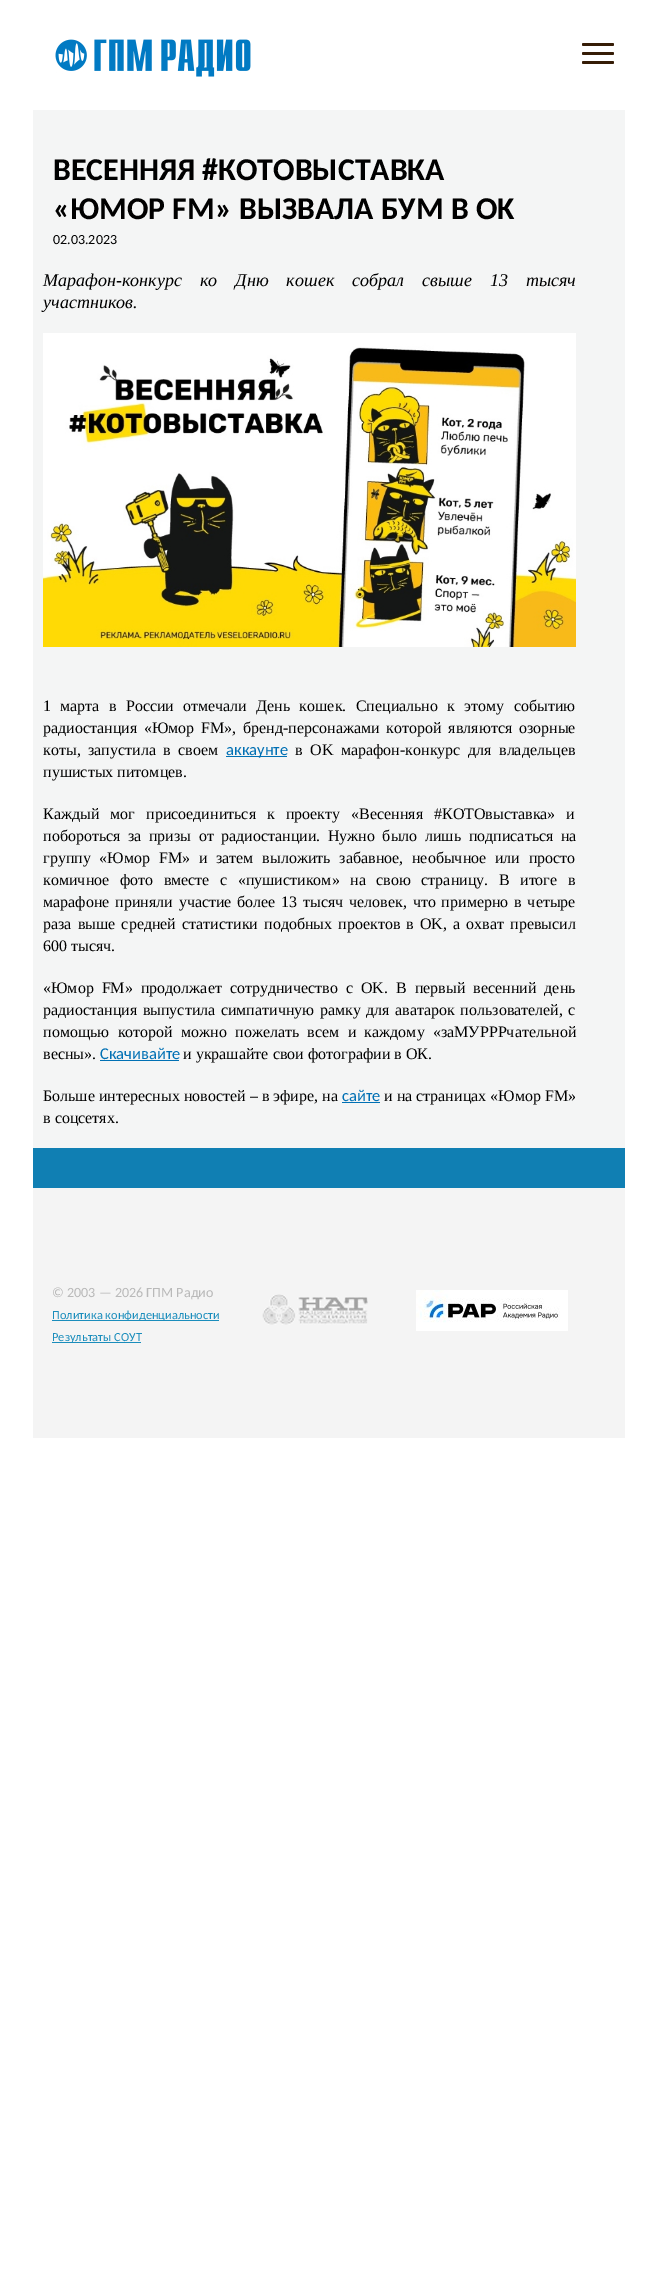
%!PS
<< /PageSize [658 2286] >> setpagedevice
/m/moveto load def
/f/fill load def
/C { dup -16 bitshift 255 div exch dup -8 bitshift 255 and 255 div exch 255 and 255 div setrgbcolor } def
/F { [ exch dup neg 0 0 3 -1 roll 0 0 ] selectfont } def
/T { moveto show } def
/R { rectfill } def
/Q { 5 dict begin { /r /h /w /y /x } { exch def } forall
  x r add y moveto x w add y 2 copy h add r arct x w add y h add x 1 index r arct
  x y h add x y r arct x y 2 copy exch w add exch r arct closepath end } def
/I { 5 dict begin { /h /w /y /x /name } { exch def } forall
  gsave x y translate w h scale
  w h 8 [w 0 0 h 0 0] name (r) file false 3 colorimage grestore end } def
0 2286 translate 1 -1 scale
4 setmiterlimit
16#FFFFFF C
0 0 658 2286 R
(1.rgb) 55 39 196 38 I
16#351C06 C
582 43 32 3 1.5 Q f
582 52 32 3 1.5 Q f
582 61 32 3 1.5 Q f
16#F4F5F5 C
33 110 592 1038 R
/Carlito-Bold 31.75 F
16#000000 C
(ВЕСЕННЯЯ #КОТОВЫСТАВКА) 53 180 T
(«ЮМОР FM» ВЫЗВАЛА БУМ В OK) 53 219 T
/Carlito-Regular 14 F
(02.03.2023) 53 244 T
/LiberationSerif-Italic 18.05 F
43 286 m 13.5 0 32 (Марафон-конкурс ко Дню кошек собрал свыше 13 тысяч) widthshow
(участников.) 43 308 T
(2.rgb) 43 333 533 314 I
/LiberationSerif-Regular 16 F
43 711 m 5.25 0 32 (1 марта в России отмечали День кошек. Специально к этому событию) widthshow
43 733 m 2.75 0 32 (радиостанция «Юмор FM», бренд-персонажами которой являются озорные) widthshow
43 755 m 3.5 0 32 (коты, запустила в своем) widthshow
16#0070B4 C
226 756 61 1 R
/Carlito-Regular 16.5 F
(аккаунте) 226 755 T
/LiberationSerif-Regular 16 F
16#000000 C
295 755 m 3.5 0 32 (в OK марафон-конкурс для владельцев) widthshow
(пушистых питомцев.) 43 777 T
43 819 m 7 0 32 (Каждый мог присоединиться к проекту «Весенняя #КОТОвыставка» и) widthshow
43 841 m 3.5 0 32 (побороться за призы от радиостанции. Нужно было лишь подписаться на) widthshow
43 863 m 4.75 0 32 (группу «Юмор FM» и затем выложить забавное, необычное или просто) widthshow
43 885 m 6.5 0 32 (комичное фото вместе с «пушистиком» на свою страницу. В итоге в) widthshow
43 907 m 1.8 0 32 (марафоне приняли участие более 13 тысяч человек, что примерно в четыре) widthshow
43 929 m 2.1 0 32 (раза выше средней статистики подобных проектов в OK, а охват превысил) widthshow
(600 тысяч.) 43 951 T
43 993 m 4 0 32 («Юмор FM» продолжает сотрудничество с OK. В первый весенний день) widthshow
43 1015 m 1.5 0 32 (радиостанция выпустила симпатичную рамку для аватарок пользователей, с) widthshow
43 1037 m 4.25 0 32 (помощью которой можно пожелать всем и каждому «заМУРРРчательной) widthshow
(весны».) 43 1059 T
/Carlito-Regular 16.5 F
16#0070B4 C
(Скачивайте) 100 1059 T
100 1060 79 1 R
/LiberationSerif-Regular 16 F
16#000000 C
(и украшайте свои фотографии в ОК.) 183 1059 T
(Больше интересных новостей – в эфире, на) 43 1101 T
/Carlito-Regular 16.5 F
16#0070B4 C
(сайте) 342 1101 T
342 1102 38 1 R
/LiberationSerif-Regular 16 F
16#000000 C
(и на страницах «Юмор FM») 384 1101 T
(в соцсетях.) 43 1123 T
16#107FB3 C
33 1148 592 40 R
16#F4F4F4 C
33 1188 592 250 R
/Carlito-Regular 14.1 F
16#B9B9B9 C
(© 2003 — 2026 ГПМ Радио) 52 1297 T
16#1A8DBC C
52 1320 167 1 R
/Carlito-Regular 12.4 F
(Политика конфиденциальности) 52 1319 T
52 1342 89 1 R
(Результаты СОУТ) 52 1341 T
(3.rgb) 262 1294 106 31 I
(4.rgb) 416 1290 152 41 I
showpage
